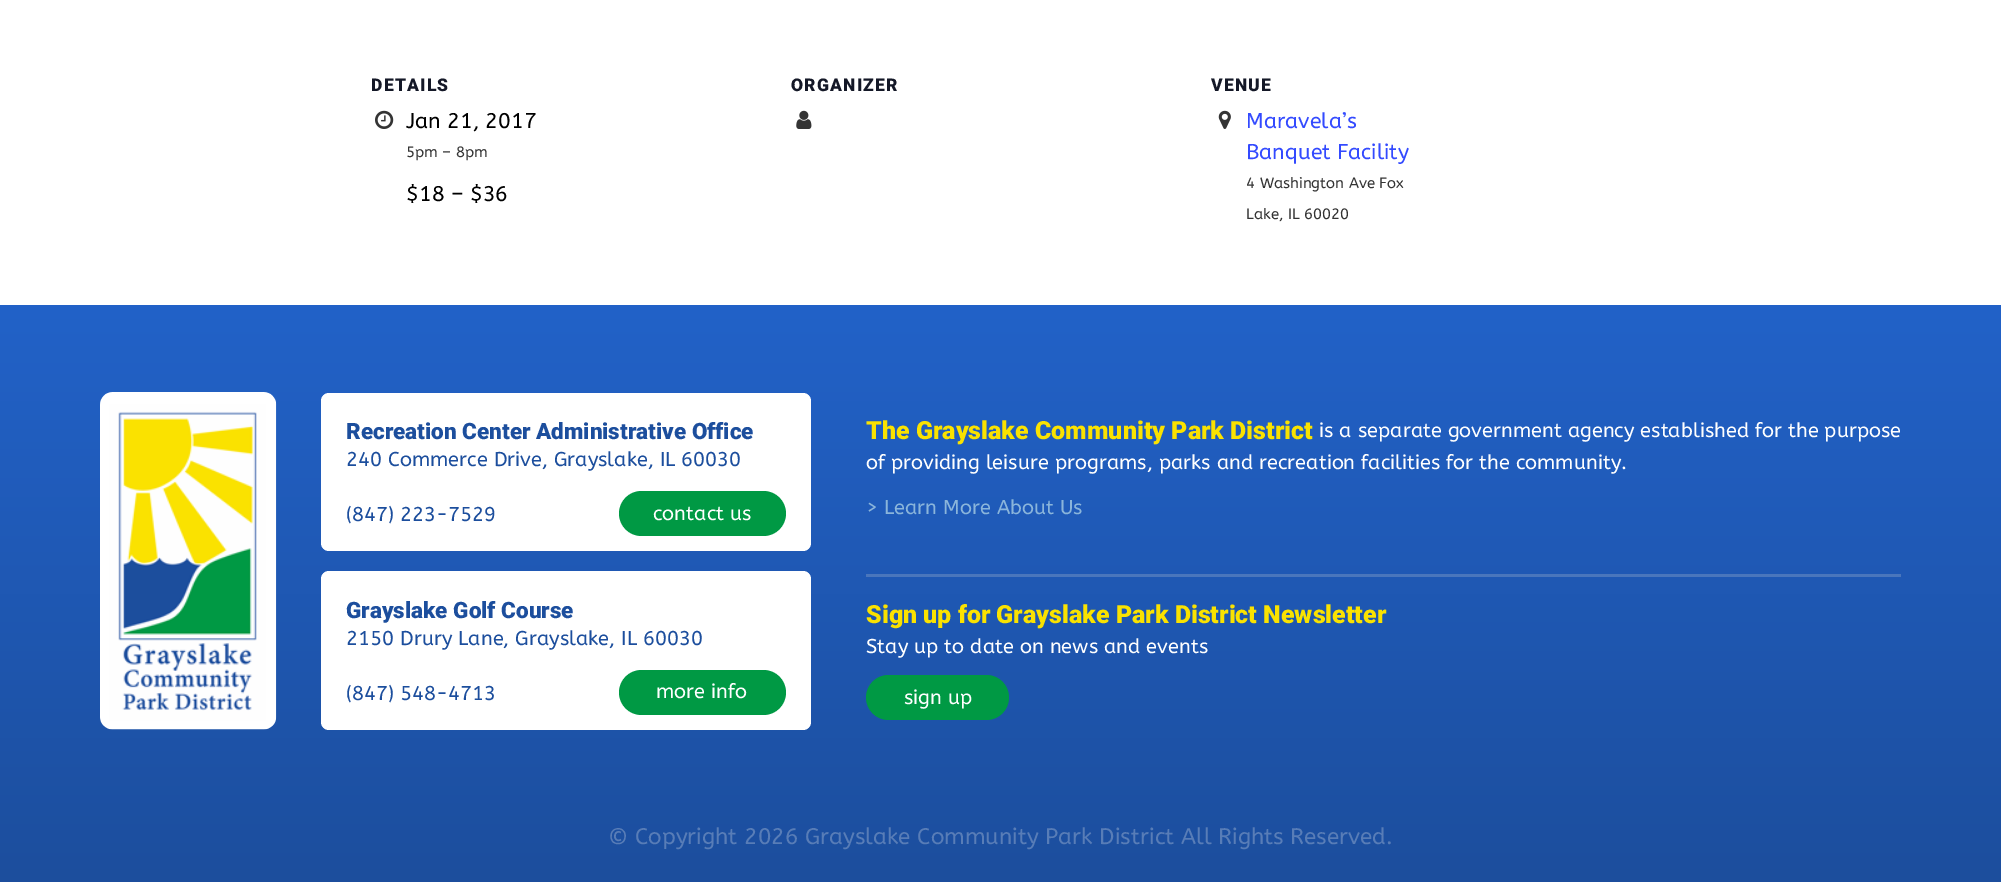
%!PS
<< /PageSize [2001 882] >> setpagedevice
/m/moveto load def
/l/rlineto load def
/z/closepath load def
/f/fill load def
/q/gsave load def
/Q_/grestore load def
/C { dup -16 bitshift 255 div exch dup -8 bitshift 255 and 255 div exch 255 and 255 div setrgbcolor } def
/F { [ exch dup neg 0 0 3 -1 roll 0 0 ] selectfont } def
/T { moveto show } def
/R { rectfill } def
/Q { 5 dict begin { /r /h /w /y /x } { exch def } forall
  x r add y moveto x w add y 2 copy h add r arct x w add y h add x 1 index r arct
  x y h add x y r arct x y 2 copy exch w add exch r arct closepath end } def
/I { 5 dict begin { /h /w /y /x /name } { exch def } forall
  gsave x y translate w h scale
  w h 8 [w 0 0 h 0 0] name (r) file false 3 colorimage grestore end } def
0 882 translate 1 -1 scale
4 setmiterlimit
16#FFFFFF C
0 0 2001 882 R
/Roboto-Black 17.5 F
16#141827 C
371 91 m 1.25 0 (DETAILS) ashow
(1.rgb) 375 110 19 19 I
/ABeeZee-Regular 21.25 F
16#000000 C
(Jan 21, 2017) 406 128 T
/ABeeZee-Regular 15 F
16#343434 C
(5pm – 8pm) 406 157 T
/ABeeZee-Regular 21.25 F
16#000000 C
($18 – $36) 406 201 T
/Roboto-Black 17.5 F
16#141827 C
791 91 m 1.25 0 (ORGANIZER) ashow
(2.rgb) 796 110 16 19 I
1211 91 m 1.25 0 (VENUE) ashow
(3.rgb) 1218 110 13 19 I
/ABeeZee-Regular 21.25 F
16#334AFF C
(Maravela’s) 1246 128 T
(Banquet Facility) 1246 159 T
/ABeeZee-Regular 15 F
16#343434 C
(4 Washington Ave Fox) 1246 188 T
(Lake, IL 60020) 1246 219 T
q 0 305 m 2001 0 l 0 577 l -2001 0 l z clip newpath
<< /ShadingType 2 /ColorSpace /DeviceRGB /Coords [1001 305 1001 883] /Extend [true true] /Function << /FunctionType 2 /Domain [0 1] /C0 [.133 .384 .784] /C1 [.11 .306 .616] /N 1 >> >> shfill Q_
(4.rgb) 100 392 177 338 I
16#FFFFFF C
321 393 490 158 8 Q f
/Roboto-Black 22.5 F
16#1C4E9D C
(Recreation Center Administrative Office) 346 439 T
/ABeeZee-Regular 20 F
(240 Commerce Drive, Grayslake, IL 60030) 346 466 T
(\(847\) 223-7529) 346 521 T
16#009944 C
619 491 167 45 22.5 Q f
16#FFFFFF C
(contact us) 653 520 T
321 571 490 159 8 Q f
/Roboto-Black 22.5 F
16#1C4E9D C
(Grayslake Golf Course) 346 618 T
/ABeeZee-Regular 20 F
(2150 Drury Lane, Grayslake, IL 60030) 346 645 T
(\(847\) 548-4713) 346 700 T
16#009944 C
619 670 167 45 22.5 Q f
16#FFFFFF C
(more info) 656 698 T
16#4A76BC C
866 574 1035 3 R
/Roboto-Black 25 F
16#FAE200 C
(The Grayslake Community Park District) 866 439 T
/ABeeZee-Regular 20 F
16#FFFFFF C
(is a separate government agency established for the purpose) 1319 437 T
(of providing leisure programs, parks and recreation facilities for the community.) 866 469 T
16#8AB5DB C
(> Learn More About Us) 866 514 T
/Roboto-Black 25 F
16#FAE200 C
(Sign up for Grayslake Park District Newsletter) 866 623 T
/ABeeZee-Regular 20 F
16#FFFFFF C
(Stay up to date on news and events) 866 653 T
16#009944 C
866 675 143 45 22.5 Q f
16#FFFFFF C
(sign up) 904 704 T
/ABeeZee-Regular 22.5 F
16#587DB7 C
(© Copyright 2026 Grayslake Community Park District All Rights Reserved.) 608 844 T
showpage
